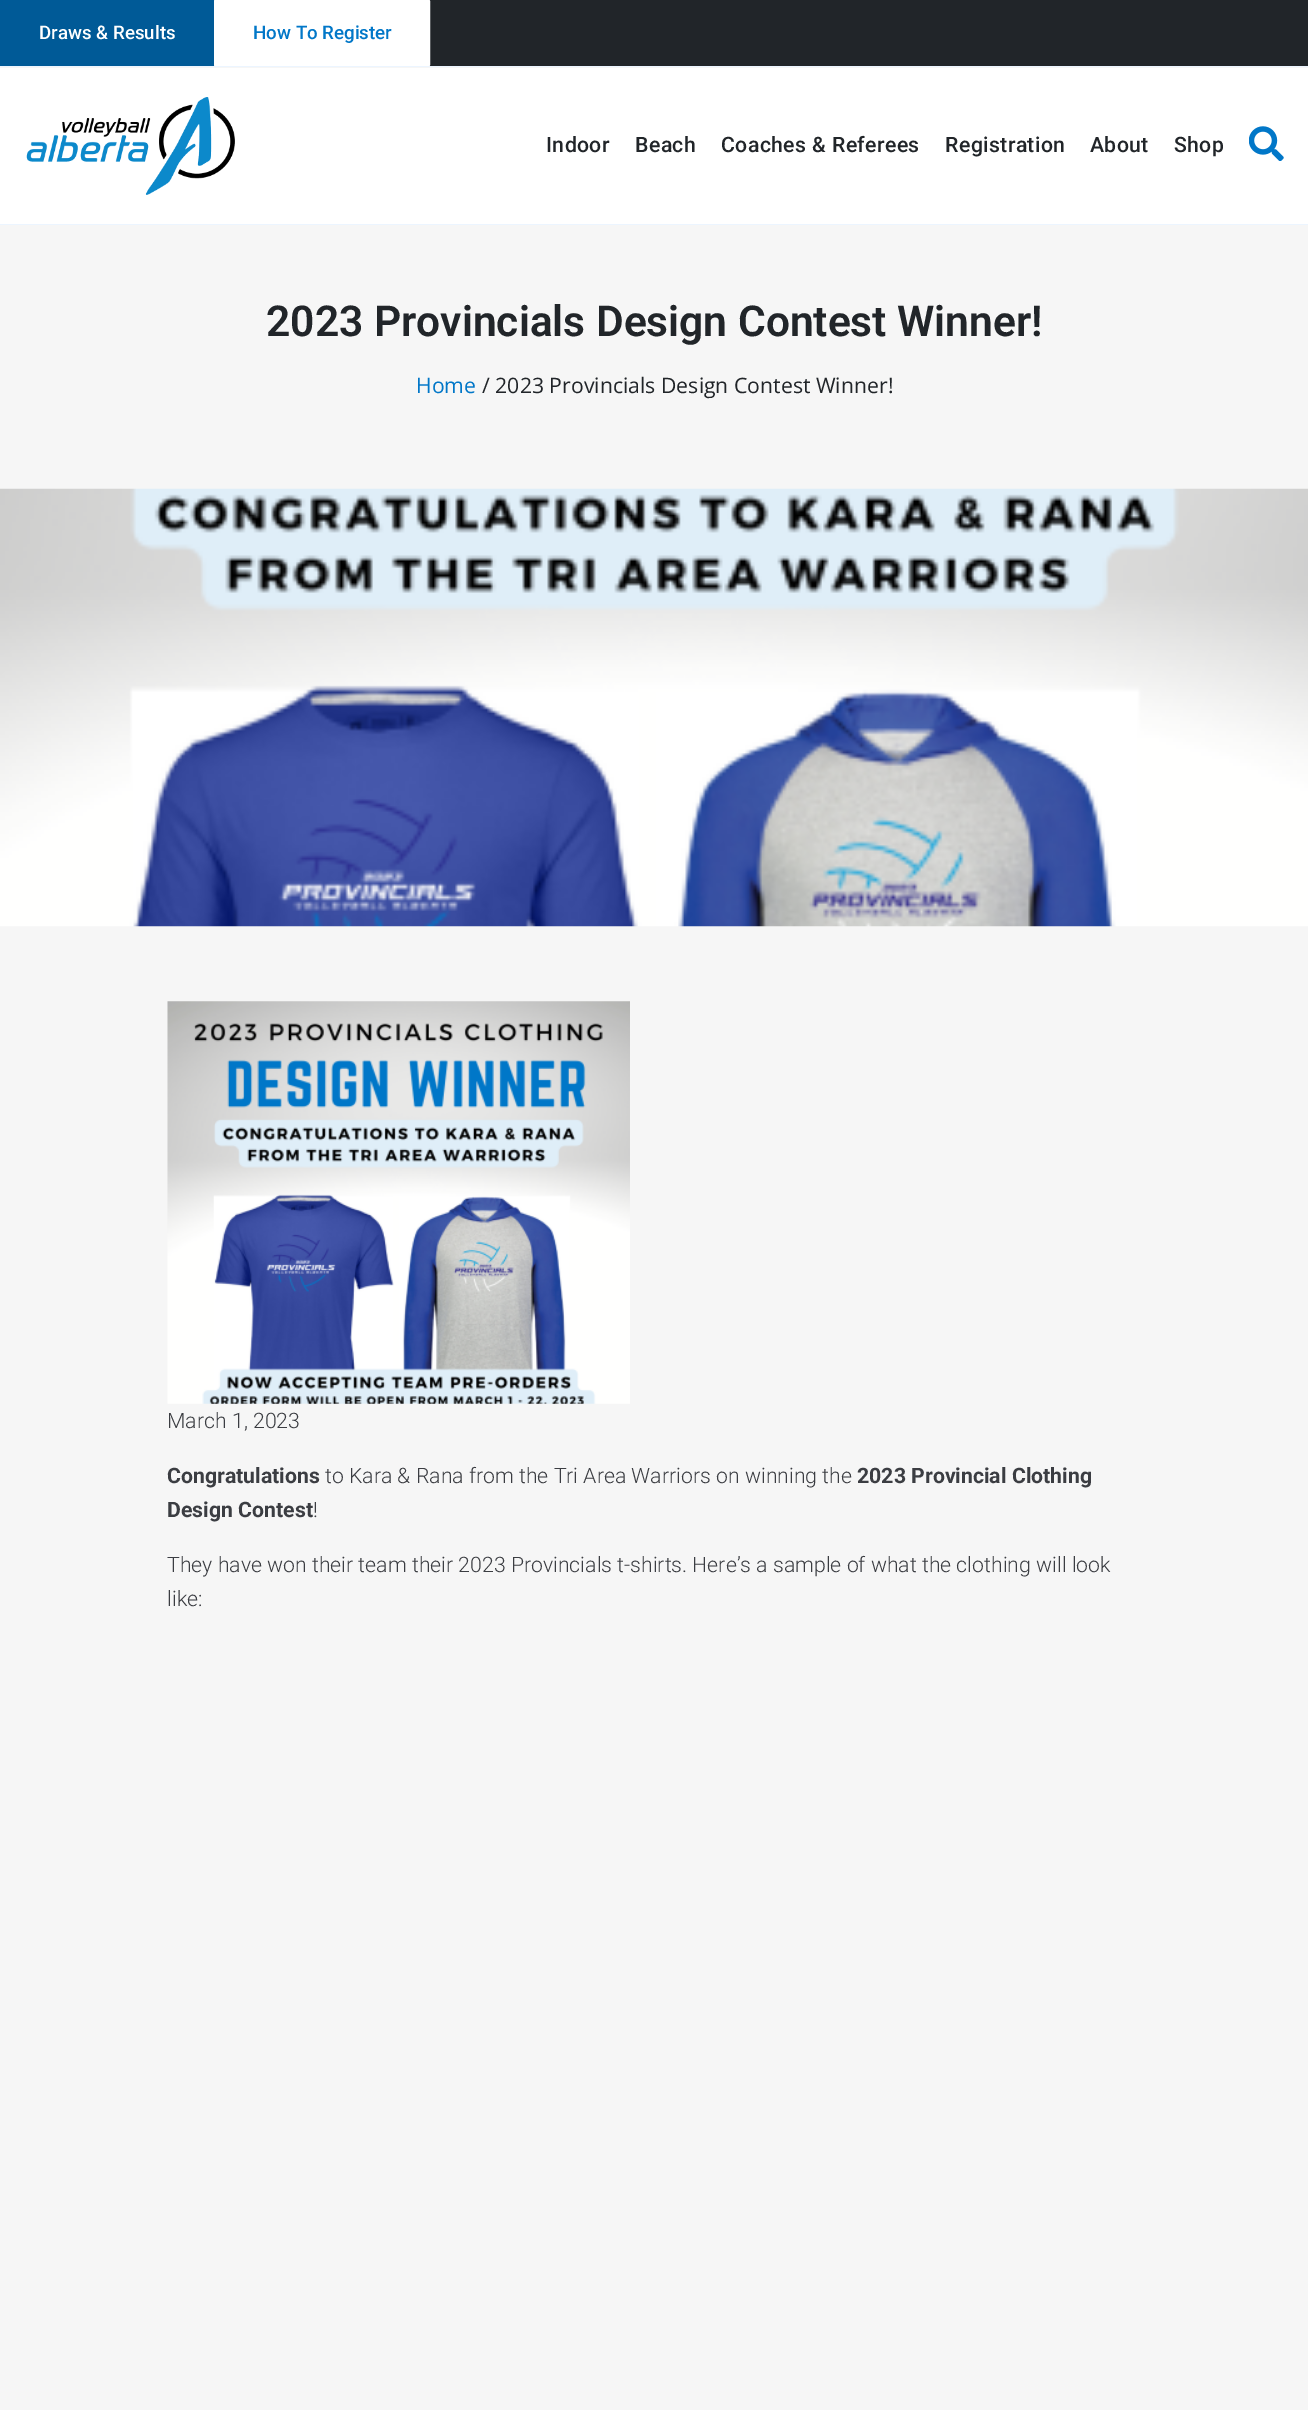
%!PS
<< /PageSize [1308 2410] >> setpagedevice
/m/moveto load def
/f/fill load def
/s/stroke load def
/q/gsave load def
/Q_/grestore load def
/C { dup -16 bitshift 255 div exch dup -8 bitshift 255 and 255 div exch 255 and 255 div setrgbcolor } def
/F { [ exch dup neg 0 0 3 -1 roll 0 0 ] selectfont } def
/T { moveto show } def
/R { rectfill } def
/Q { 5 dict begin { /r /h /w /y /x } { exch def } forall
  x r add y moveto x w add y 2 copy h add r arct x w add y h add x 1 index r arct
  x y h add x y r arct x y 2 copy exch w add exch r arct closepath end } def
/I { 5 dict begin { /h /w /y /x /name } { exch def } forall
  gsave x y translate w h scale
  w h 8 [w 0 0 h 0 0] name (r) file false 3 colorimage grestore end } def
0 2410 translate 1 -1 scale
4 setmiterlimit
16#F6F6F6 C
0 0 1308 2410 R
16#212529 C
214 0 1094 66 R
16#005A97 C
0 0 214 66 R
/Roboto-Medium 18.75 F
16#FFFFFF C
(Draws & Results) 39 39 T
214.5 .5 215 65 .5 Q q f Q_
s
16#0177C8 C
(How To Register) 253 39 T
16#FFFFFF C
0 68 1308 156 R
16#ECF5FF C
0 66 1308 1 R
0 224 1308 1 R
(1.rgb) 26 97 209 98 I
/Roboto-Medium 21.25 F
16#212529 C
546 152 m .4 0 (Indoor) ashow
635 152 m .4 0 (Beach) ashow
721 152 m .4 0 (Coaches & Referees) ashow
945 152 m .4 0 (Registration) ashow
1090 152 m .4 0 (About) ashow
1174 152 m .4 0 (Shop) ashow
(2.rgb) 1249 126 35 35 I
/Roboto-SemiBold 42.5 F
(2023 Provincials Design Contest Winner!) 266 336 T
/OpenSans-Regular 21.25 F
16#0177C8 C
(Home) 416 393 T
16#212529 C
(/ 2023 Provincials Design Contest Winner!) 482 393 T
(3.rgb) 0 488 1308 439 I
(4.rgb) 167 1001 463 403 I
/Roboto-Light 21.25 F
16#3B3D42 C
(March 1, 2023) 167 1428 T
/Roboto-Bold 21.25 F
(Congratulations) 167 1483 T
/Roboto-Light 21.25 F
(to Kara & Rana from the Tri Area Warriors on winning the) 325 1483 T
/Roboto-Bold 21.25 F
(2023 Provincial Clothing) 857 1483 T
(Design Contest) 167 1517 T
/Roboto-Light 21.25 F
(!) 313 1517 T
(They have won their team their 2023 Provincials t-shirts. Here’s a sample of what the clothing will look) 167 1572 T
(like:) 167 1606 T
showpage
